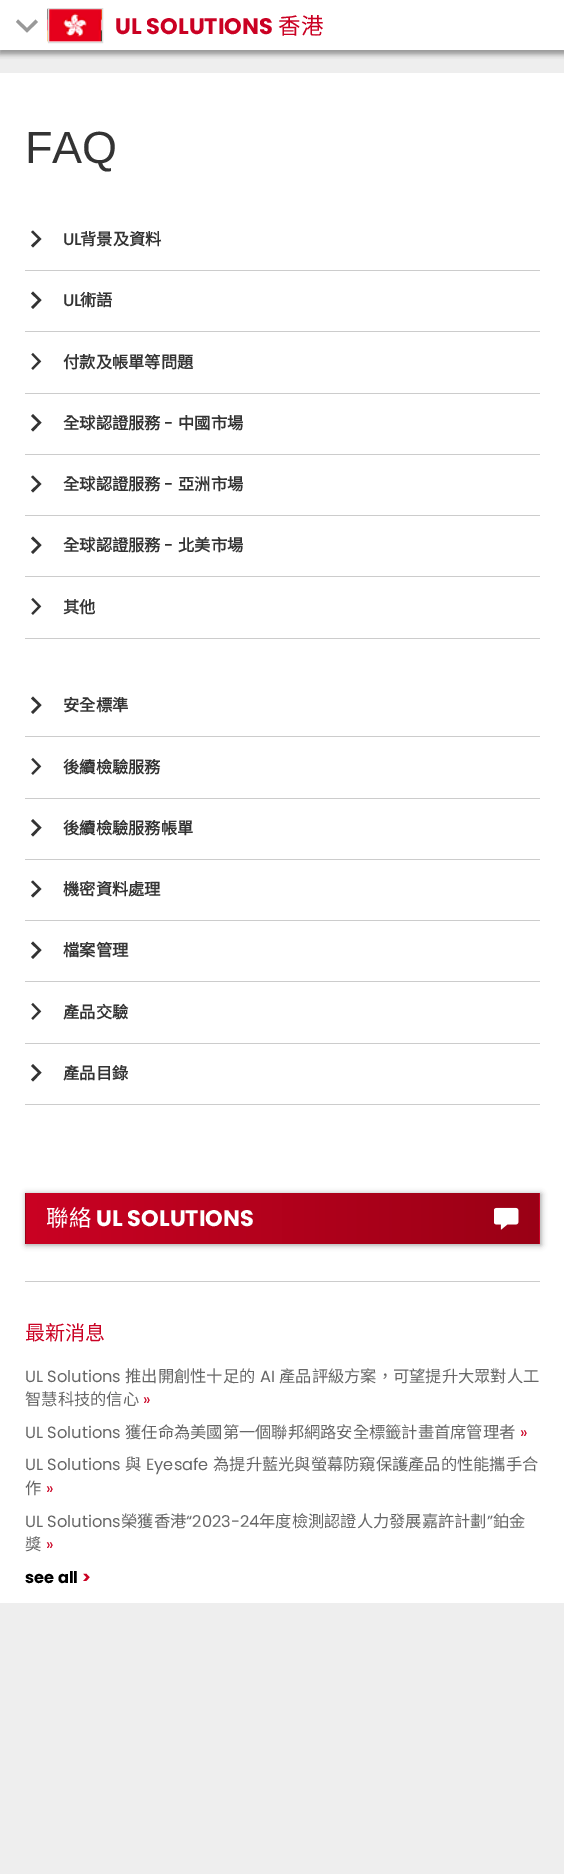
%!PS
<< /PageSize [564 1874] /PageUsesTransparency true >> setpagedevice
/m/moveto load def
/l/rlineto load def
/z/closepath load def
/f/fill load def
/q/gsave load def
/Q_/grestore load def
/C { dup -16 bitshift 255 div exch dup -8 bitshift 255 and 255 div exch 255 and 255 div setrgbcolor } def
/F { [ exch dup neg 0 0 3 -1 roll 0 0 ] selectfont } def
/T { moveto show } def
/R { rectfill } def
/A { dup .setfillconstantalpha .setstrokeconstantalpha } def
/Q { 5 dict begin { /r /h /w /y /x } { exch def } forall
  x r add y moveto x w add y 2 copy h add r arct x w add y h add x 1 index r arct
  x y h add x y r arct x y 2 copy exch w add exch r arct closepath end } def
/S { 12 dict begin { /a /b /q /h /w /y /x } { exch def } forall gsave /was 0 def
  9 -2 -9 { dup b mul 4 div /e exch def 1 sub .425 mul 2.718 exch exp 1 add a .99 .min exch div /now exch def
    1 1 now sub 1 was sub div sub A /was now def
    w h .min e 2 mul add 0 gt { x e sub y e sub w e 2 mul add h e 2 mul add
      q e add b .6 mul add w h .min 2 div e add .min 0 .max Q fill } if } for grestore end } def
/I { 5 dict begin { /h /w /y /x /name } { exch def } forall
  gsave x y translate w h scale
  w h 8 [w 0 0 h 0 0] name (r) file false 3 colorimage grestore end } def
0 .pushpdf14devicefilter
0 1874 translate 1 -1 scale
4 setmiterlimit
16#EEEEEE C
0 0 564 1874 R
16#999999 C
0 3 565 50 0 3 1 S
16#FFFFFF C
0 0 564 50 R
q
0 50 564 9 rectclip
16#999999 C
0 3 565 50 0 3 1 S
Q_
16#999999 C
16 22 m 2 -2.5 l 9 8.5 l 8.5 -8.5 l 2.5 2.5 l -11 10.5 l z f
(1.rgb) 47 8 55 35 I
16#DDDDDD C
48.5 8.5 54 34 rectstroke
/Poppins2-Bold 22.5 F
16#CA0123 C
(UL SOLUTIONS) 115 34 T
/NotoSansCJKHK-Regular 22.5 F
(香港) 278 34 T
16#FFFFFF C
0 73 564 1530 R
/LiberationSans-Regular 45 F
16#333333 C
(FAQ) 25 163 T
16#CCCCCC C
25 638 515 1 R
25 270 515 1 R
16#333333 C
33 247.5 m -2 -2 l 7 -6.5 l -7 -7 l 2 -1.5 l 8.5 8.5 l z f
/Poppins-Bold 16.25 F
(UL) 63 245 T
/NotoSansCJKHK-Bold 16.25 F
(背景及資料) 80 245 T
16#CCCCCC C
25 331 515 1 R
16#333333 C
33 309 m -2 -2 l 7 -7 l -7 -6.5 l 2 -2 l 8.5 8.5 l z f
/Poppins-Bold 16.25 F
(UL) 63 306 T
/NotoSansCJKHK-Bold 16.25 F
(術語) 80 306 T
16#CCCCCC C
25 393 515 1 R
(2.rgb) 31 352 11 18 I
16#333333 C
(付款及帳單等問題) 63 368 T
16#CCCCCC C
25 454 515 1 R
16#333333 C
33 431.5 m -2 -2 l 7 -7 l -7 -6.5 l 2 -2 l 8.5 8.5 l z f
(全球認證服務) 63 429 T
/Poppins-Bold 16.25 F
(-) 164 429 T
/NotoSansCJKHK-Bold 16.25 F
(中國市場) 178 429 T
16#CCCCCC C
25 515 515 1 R
16#333333 C
33 492.5 m -2 -2 l 7 -6.5 l -7 -7 l 2 -1.5 l 8.5 8.5 l z f
(全球認證服務) 63 490 T
/Poppins-Bold 16.25 F
(-) 164 490 T
/NotoSansCJKHK-Bold 16.25 F
(亞洲市場) 178 490 T
16#CCCCCC C
25 576 515 1 R
16#333333 C
33 554 m -2 -2 l 7 -7 l -7 -6.5 l 2 -2 l 8.5 8.5 l z f
(全球認證服務) 63 551 T
/Poppins-Bold 16.25 F
(-) 164 551 T
/NotoSansCJKHK-Bold 16.25 F
(北美市場) 178 551 T
(2.rgb) 31 597 11 18 I
(其他) 63 613 T
16#CCCCCC C
25 1104 515 1 R
25 736 515 1 R
16#333333 C
33 714 m -2 -2 l 7 -7 l -7 -6.5 l 2 -2 l 8.5 8.5 l z f
(安全標準) 63 711 T
16#CCCCCC C
25 798 515 1 R
(2.rgb) 31 757 11 18 I
16#333333 C
(後續檢驗服務) 63 773 T
16#CCCCCC C
25 859 515 1 R
16#333333 C
33 836.5 m -2 -2 l 7 -7 l -7 -6.5 l 2 -2 l 8.5 8.5 l z f
(後續檢驗服務帳單) 63 834 T
16#CCCCCC C
25 920 515 1 R
16#333333 C
33 897.5 m -2 -2 l 7 -6.5 l -7 -7 l 2 -1.5 l 8.5 8.5 l z f
(機密資料處理) 63 895 T
16#CCCCCC C
25 981 515 1 R
16#333333 C
33 959 m -2 -2 l 7 -7 l -7 -6.5 l 2 -2 l 8.5 8.5 l z f
(檔案管理) 63 956 T
16#CCCCCC C
25 1043 515 1 R
(2.rgb) 31 1002 11 18 I
16#333333 C
(產品交驗) 63 1018 T
33 1081.5 m -2 -2 l 7 -7 l -7 -6.5 l 2 -2 l 8.5 8.5 l z f
(產品目錄) 63 1079 T
16#999999 C
26 1194 515 51 0 3 1 S
q 25 1193 m 1 0 l 0 51 l -1 0 l z clip newpath
<< /ShadingType 2 /ColorSpace /DeviceRGB /Coords [-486 1218 26 1218] /Extend [true true] /Function << /FunctionType 2 /Domain [0 1] /C0 [.792 .004 .137] /C1 [.604 0 .082] /N 1 >> >> shfill Q_
q 26 1193 m 513 0 l 0 51 l -513 0 l z clip newpath
<< /ShadingType 2 /ColorSpace /DeviceRGB /Coords [26 1218 539 1218] /Extend [true true] /Function << /FunctionType 2 /Domain [0 1] /C0 [.792 .004 .137] /C1 [.604 0 .082] /N 1 >> >> shfill Q_
q 539 1193 m 1 0 l 0 51 l -1 0 l z clip newpath
<< /ShadingType 2 /ColorSpace /DeviceRGB /Coords [539 1218 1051 1218] /Extend [true true] /Function << /FunctionType 2 /Domain [0 1] /C0 [.792 .004 .137] /C1 [.604 0 .082] /N 1 >> >> shfill Q_
/NotoSansCJKHK-Regular 22.5 F
16#FFFFFF C
(聯絡) 46 1226 T
/Poppins2-Bold 22.5 F
(UL SOLUTIONS) 96 1226 T
(3.rgb) 494 1207 25 23 I
16#CCCCCC C
25 1281 515 1 R
/NotoSansCJKHK-Regular 20 F
16#CA0123 C
(最新消息) 25 1340 T
/Poppins-Regular 16.25 F
16#666666 C
(UL Solutions) 25 1382 T
/NotoSansCJKHK-Regular 16.25 F
(推出開創性十足的) 125 1382 T
/Poppins-Regular 16.25 F
(AI) 260 1382 T
/NotoSansCJKHK-Regular 16.25 F
(產品評級方案，可望提升大眾對人工) 279 1382 T
(智慧科技的信心) 25 1405 T
/Poppins-Regular 16.25 F
16#CA0123 C
(») 143 1405 T
16#666666 C
(UL Solutions) 25 1438 T
/NotoSansCJKHK-Regular 16.25 F
(獲任命為美國第一個聯邦網路安全標籤計畫首席管理者) 125 1438 T
/Poppins-Regular 16.25 F
16#CA0123 C
(») 520 1438 T
16#666666 C
(UL Solutions) 25 1470 T
/NotoSansCJKHK-Regular 16.25 F
(與) 125 1470 T
/Poppins-Regular 16.25 F
(Eyesafe) 146 1470 T
/NotoSansCJKHK-Regular 16.25 F
(為提升藍光與螢幕防窺保護產品的性能攜手合) 213 1470 T
(作) 25 1494 T
/Poppins-Regular 16.25 F
16#CA0123 C
(») 46 1494 T
16#666666 C
(UL Solutions) 25 1527 T
/NotoSansCJKHK-Regular 16.25 F
(榮獲香港) 121 1527 T
/Poppins-Regular 16.25 F
(“2023-24) 186 1527 T
/NotoSansCJKHK-Regular 16.25 F
(年度檢測認證人力發展嘉許計劃) 259 1527 T
/Poppins-Regular 16.25 F
(”) 487 1527 T
/NotoSansCJKHK-Regular 16.25 F
(鉑金) 493 1527 T
(獎) 25 1550 T
/Poppins-Regular 16.25 F
16#CA0123 C
(») 46 1550 T
/Poppins2-Bold 16.25 F
16#000000 C
(see all) 25 1583 T
16#CA0123 C
(>) 82 1583 T
.poppdf14devicefilter showpage
